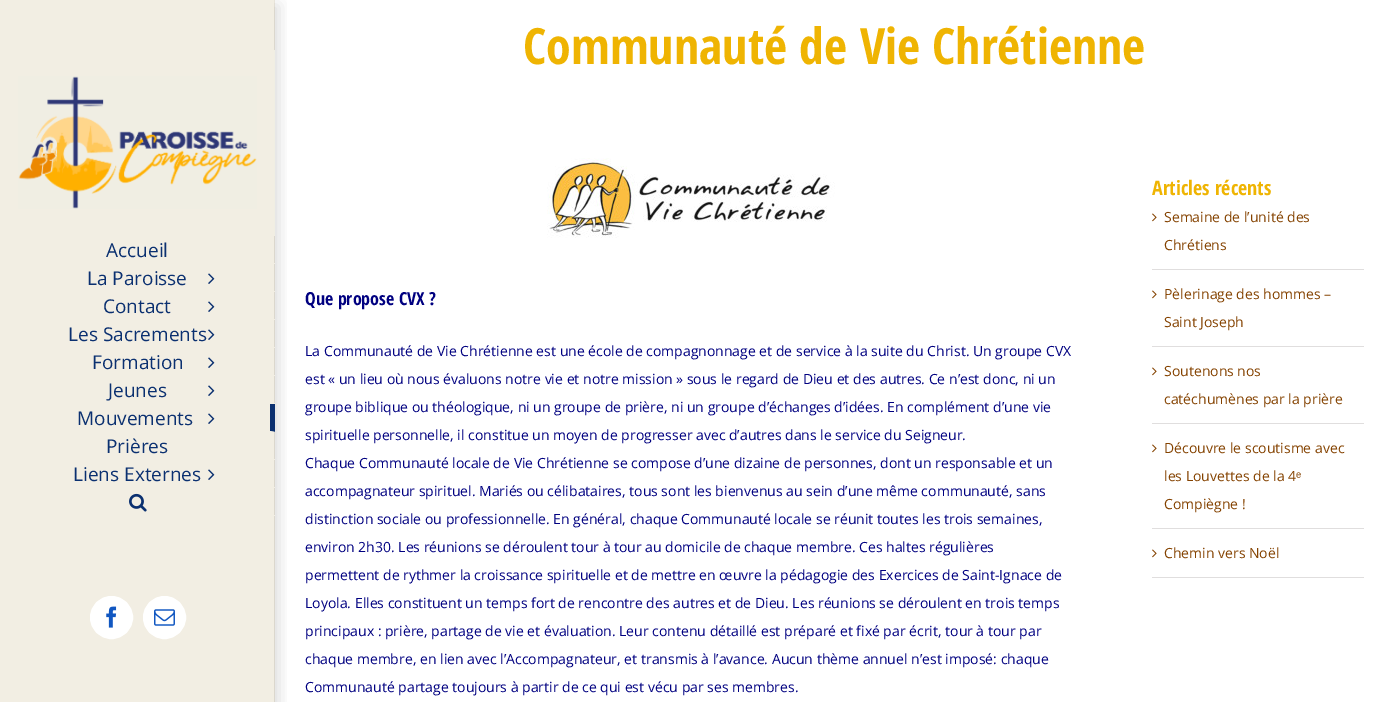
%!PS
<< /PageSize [1394 702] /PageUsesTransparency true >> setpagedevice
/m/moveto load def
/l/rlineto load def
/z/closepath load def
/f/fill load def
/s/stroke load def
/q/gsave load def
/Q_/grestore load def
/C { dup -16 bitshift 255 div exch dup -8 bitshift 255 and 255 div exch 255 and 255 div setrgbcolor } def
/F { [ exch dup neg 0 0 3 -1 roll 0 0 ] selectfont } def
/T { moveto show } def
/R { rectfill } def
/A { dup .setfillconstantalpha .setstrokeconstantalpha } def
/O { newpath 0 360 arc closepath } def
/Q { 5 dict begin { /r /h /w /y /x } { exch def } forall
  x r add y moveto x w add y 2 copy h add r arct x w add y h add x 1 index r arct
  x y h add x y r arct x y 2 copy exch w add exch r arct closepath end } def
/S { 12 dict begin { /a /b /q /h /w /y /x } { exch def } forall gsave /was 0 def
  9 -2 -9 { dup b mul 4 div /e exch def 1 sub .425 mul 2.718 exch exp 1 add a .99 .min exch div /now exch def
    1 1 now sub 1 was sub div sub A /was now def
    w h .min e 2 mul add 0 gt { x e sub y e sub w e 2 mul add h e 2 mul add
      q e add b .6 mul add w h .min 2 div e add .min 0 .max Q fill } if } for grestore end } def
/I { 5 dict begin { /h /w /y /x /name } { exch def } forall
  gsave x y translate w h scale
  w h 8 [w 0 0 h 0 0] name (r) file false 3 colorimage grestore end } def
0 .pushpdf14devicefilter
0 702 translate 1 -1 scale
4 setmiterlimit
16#FFFFFF C
0 0 1394 702 R
/OpenSansCondensed-Bold 50 F
16#EFB402 C
(Communauté de Vie Chrétienne) 523 64 T
16#F2EEE3 C
0 0 275 702 R
q
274 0 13 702 rectclip
16#000000 C
264 5 15 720 0 7.5 .14 S
Q_
16#F0EEE3 C
274 50 1 185 R
(1.rgb) 18 76 239 133 I
16#F2EEE3 C
274 235 1 1 R
274 263 1 1 R
/OpenSans-Regular 19 F
16#0B3070 C
(Accueil) 106 257 T
16#F2EEE3 C
274 291 1 1 R
16#0B3070 C
(La Paroisse) 87 285 T
(2.rgb) 208 273 7 11 I
16#F2EEE3 C
274 319 1 1 R
16#0B3070 C
(Contact) 103 313 T
(2.rgb) 208 301 7 11 I
16#F2EEE3 C
274 347 1 1 R
16#0B3070 C
(Les Sacrements) 68 341 T
(2.rgb) 208 329 7 11 I
16#F2EEE3 C
274 375 1 1 R
16#0B3070 C
(Formation) 92 369 T
(2.rgb) 208 357 7 11 I
16#F2EEE3 C
274 403 1 1 R
16#0B3070 C
(Jeunes) 108 397 T
(2.rgb) 208 385 7 11 I
275 404 m 0 28 l -5 -1 l 0 -27 l z f
16#F2EEE3 C
275 432 m -275 0 l 0 -1 l 270 0 l z f
16#0B3070 C
(Mouvements) 77 425 T
(2.rgb) 208 413 7 11 I
16#F2EEE3 C
274 459 1 1 R
16#0B3070 C
(Prières) 106 453 T
16#F2EEE3 C
274 487 1 1 R
16#0B3070 C
(Liens Externes) 73 481 T
(2.rgb) 208 469 7 11 I
16#F2EEE3 C
274 515 1 1 R
(3.rgb) 129 493 18 19 I
16#FFFFFF C
111.5 617.5 21 O q f Q_
s
(4.rgb) 106 606 11 22 I
164.5 617.5 21 O q f Q_
s
(5.rgb) 154 609 21 17 I
(6.rgb) 547 158 288 80 I
/OpenSansCondensed-Bold 18 F
16#000080 C
(Que propose CVX ?) 305 305 T
/OpenSans-Regular 14 F
(La Communauté de Vie Chrétienne est une école de compagnonnage et de service à la suite du Christ. Un groupe CVX) 305 356 T
(est « un lieu où nous évaluons notre vie et notre mission » sous le regard de Dieu et des autres. Ce n’est donc, ni un) 305 384 T
(groupe biblique ou théologique, ni un groupe de prière, ni un groupe d’échanges d’idées. En complément d’une vie) 305 412 T
(spirituelle personnelle, il constitue un moyen de progresser avec d’autres dans le service du Seigneur.) 305 440 T
(Chaque Communauté locale de Vie Chrétienne se compose d’une dizaine de personnes, dont un responsable et un) 305 468 T
(accompagnateur spirituel. Mariés ou célibataires, tous sont les bienvenus au sein d’une même communauté, sans) 305 496 T
(distinction sociale ou professionnelle. En général, chaque Communauté locale se réunit toutes les trois semaines,) 305 524 T
(environ 2h30. Les réunions se déroulent tour à tour au domicile de chaque membre. Ces haltes régulières) 305 552 T
(permettent de rythmer la croissance spirituelle et de mettre en œuvre la pédagogie des Exercices de Saint-Ignace de) 305 580 T
(Loyola. Elles constituent un temps fort de rencontre des autres et de Dieu. Les réunions se déroulent en trois temps) 305 608 T
(principaux : prière, partage de vie et évaluation. Leur contenu détaillé est préparé et fixé par écrit, tour à tour par) 305 636 T
(chaque membre, en lien avec l’Accompagnateur, et transmis à l’avance. Aucun thème annuel n’est imposé: chaque) 305 664 T
(Communauté partage toujours à partir de ce qui est vécu par ses membres.) 305 692 T
/OpenSansCondensed-Bold 20 F
16#EFB402 C
(Articles récents) 1152 195 T
16#E0DEDE C
1152 269 212 1 R
(7.rgb) 1152 213 5 9 I
/OpenSans-Regular 14 F
16#844200 C
(Semaine de l’unité des) 1164 222 T
(Chrétiens) 1164 250 T
16#E0DEDE C
1152 346 212 1 R
(7.rgb) 1152 290 5 9 I
16#844200 C
(Pèlerinage des hommes –) 1164 299 T
(Saint Joseph) 1164 327 T
16#E0DEDE C
1152 423 212 1 R
(7.rgb) 1152 367 5 9 I
16#844200 C
(Soutenons nos) 1164 376 T
(catéchumènes par la prière) 1164 404 T
16#E0DEDE C
1152 528 212 1 R
(7.rgb) 1152 444 5 9 I
16#844200 C
(Découvre le scoutisme avec) 1164 453 T
(les Louvettes de la 4) 1164 481 T
/LiberationSans-Regular 14 F
(ᵉ) 1296 481 T
/OpenSans-Regular 14 F
(Compiègne !) 1164 509 T
16#E0DEDE C
1152 577 212 1 R
(7.rgb) 1152 549 5 9 I
16#844200 C
(Chemin vers Noël) 1164 558 T
.poppdf14devicefilter showpage
